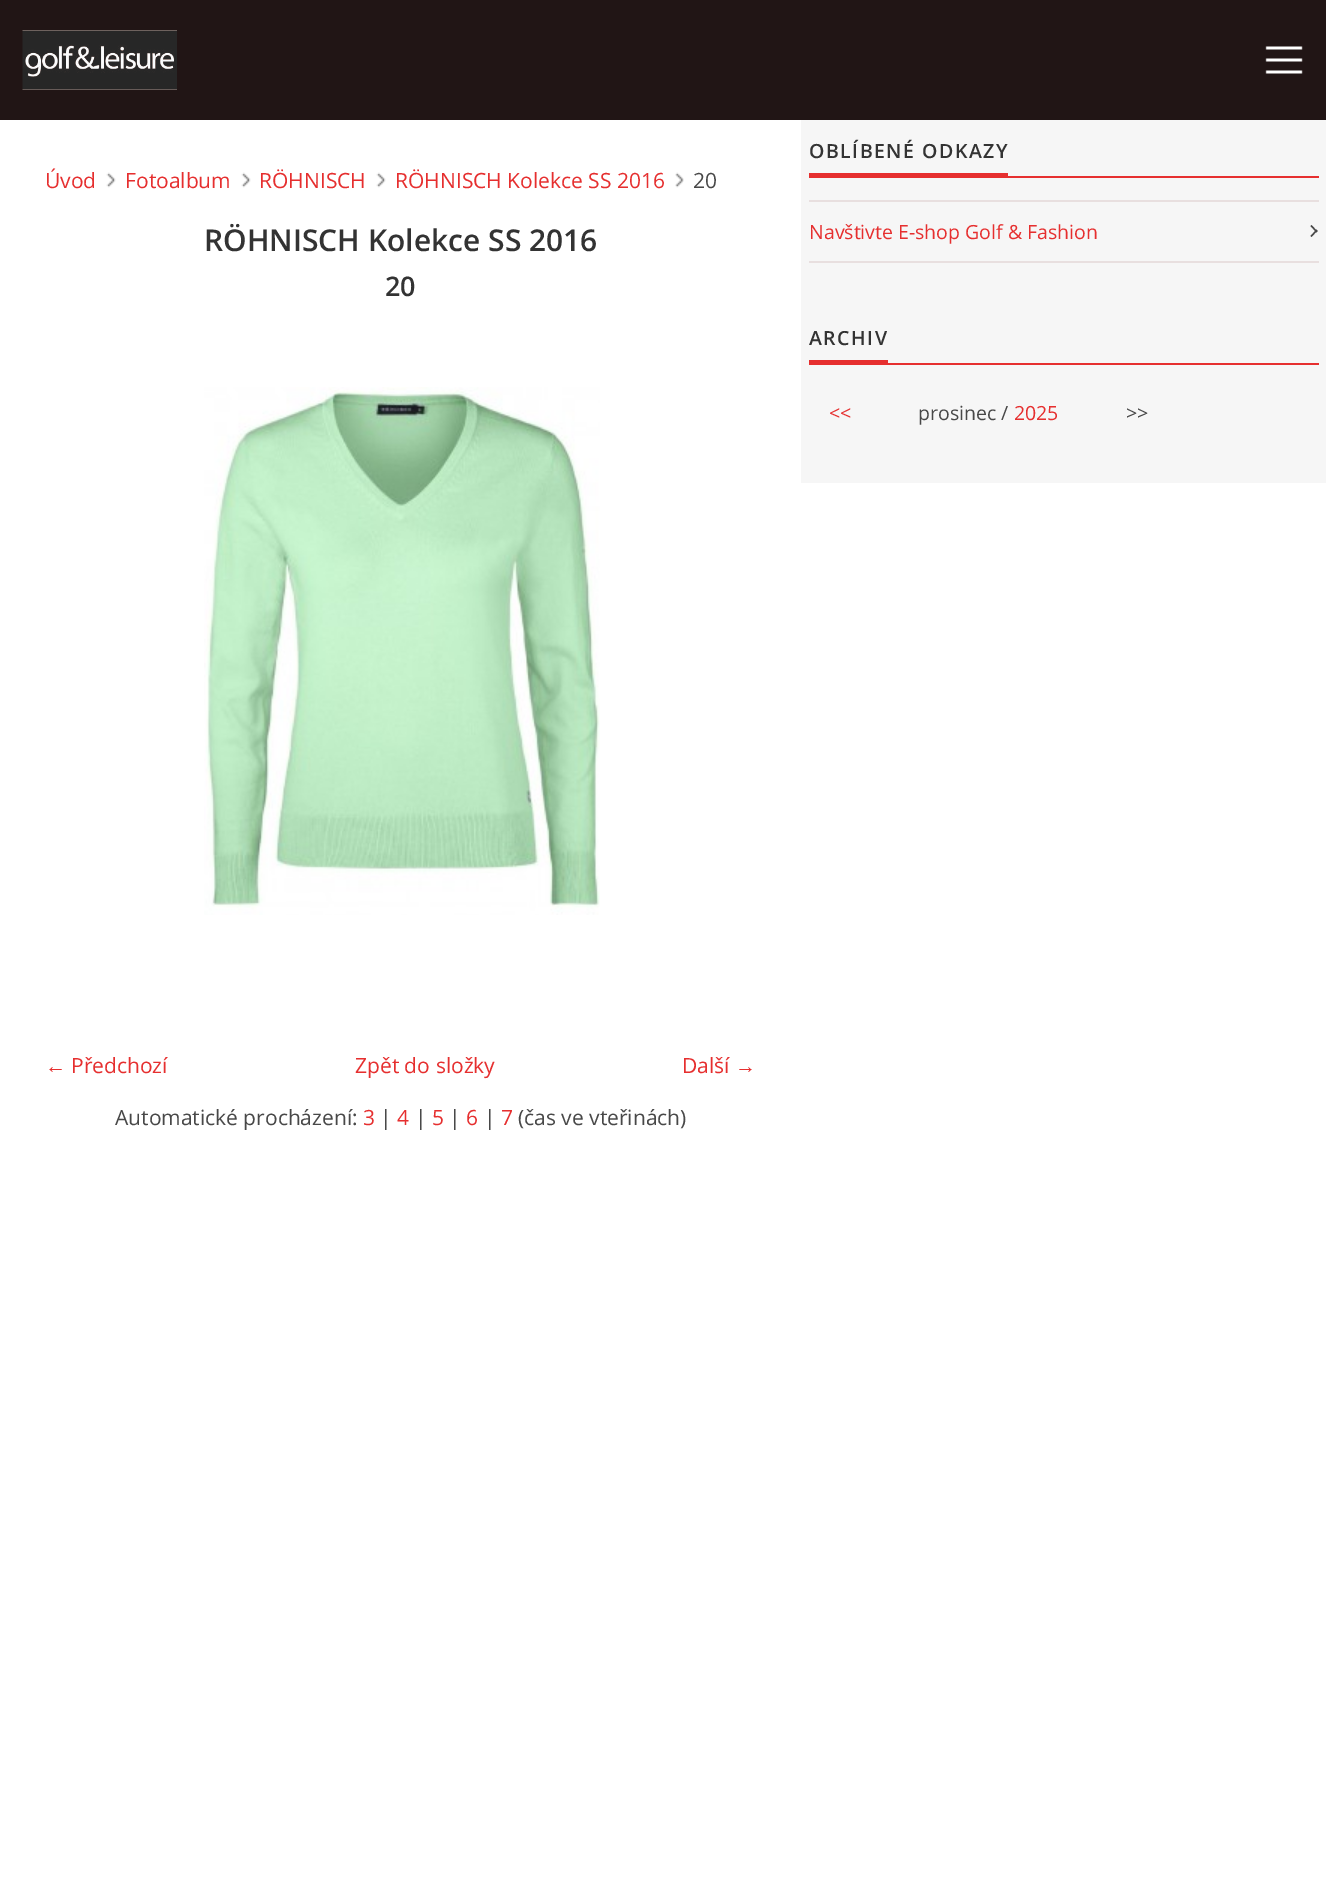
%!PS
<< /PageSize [1326 1900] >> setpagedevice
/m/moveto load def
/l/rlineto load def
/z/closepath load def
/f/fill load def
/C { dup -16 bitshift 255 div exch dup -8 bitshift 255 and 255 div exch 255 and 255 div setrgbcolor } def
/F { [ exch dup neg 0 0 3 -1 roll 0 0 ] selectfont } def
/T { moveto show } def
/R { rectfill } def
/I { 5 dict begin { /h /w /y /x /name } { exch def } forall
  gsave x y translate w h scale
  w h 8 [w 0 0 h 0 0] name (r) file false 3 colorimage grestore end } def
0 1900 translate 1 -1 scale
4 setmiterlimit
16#FFFFFF C
0 0 1326 1900 R
16#211515 C
0 0 1326 120 R
(1.rgb) 22 30 155 60 I
(2.rgb) 1265 46 38 28 I
(3.rgb) 106 172 10 16 I
/OpenSans-Regular 21 F
16#E62F2F C
(Úvod) 45 188 T
(3.rgb) 241 172 10 16 I
(Fotoalbum) 125 188 T
(4.rgb) 376 172 10 16 I
(RÖHNISCH) 259 188 T
(5.rgb) 675 172 9 16 I
(RÖHNISCH Kolekce SS 2016) 395 188 T
16#484848 C
(20) 693 188 T
/OpenSans-SemiBold 30 F
16#333333 C
(RÖHNISCH Kolekce SS 2016) 204 251 T
/OpenSans-SemiBold 27 F
(20) 385 296 T
(6.rgb) 204 387 396 528 I
/LiberationSerif-Regular 21 F
16#E62F2F C
(←) 45 1073 T
/OpenSans-Regular 21 F
(Předchozí) 71 1073 T
(Zpět do složky) 355 1073 T
(Další) 682 1073 T
/LiberationSerif-Regular 21 F
(→) 735 1073 T
/OpenSans-Regular 21 F
16#484848 C
(Automatické procházení:) 115 1125 T
16#E62F2F C
(3) 363 1125 T
16#484848 C
(|) 380 1125 T
16#E62F2F C
(4) 397 1125 T
16#484848 C
(|) 415 1125 T
16#E62F2F C
(5) 432 1125 T
16#484848 C
(|) 449 1125 T
16#E62F2F C
(6) 466 1125 T
16#484848 C
(|) 484 1125 T
16#E62F2F C
(7) 501 1125 T
16#484848 C
(\(čas ve vteřinách\)) 518 1125 T
16#F6F6F6 C
801 120 525 363 R
/OpenSans-SemiBold 19.5 F
16#333333 C
809 158 m 1.5 0 (OBLÍBENÉ ODKAZY) ashow
16#E62F2F C
809 173 199 3 R
809 176 510 2 R
16#E8DFDF C
809 200 510 2 R
809 261 510 2 R
/OpenSans-Regular 19.5 F
16#E62F2F C
(Navštivte E-shop Golf & Fashion) 809 239 T
16#484848 C
1311.5 225 m 6 6.5 l -1 1 l -6 -6.5 l z f
1310.5 236 m 6 -6.5 l 1 1 l -6 6.5 l z f
/OpenSans-SemiBold 19.5 F
16#333333 C
809 345 m 1.5 0 (ARCHIV) ashow
16#E62F2F C
809 360 79 3 R
809 363 510 2 R
/OpenSans-Regular 19.5 F
(<<) 829 420 T
16#484848 C
(prosinec /) 918 420 T
16#E62F2F C
(2025) 1014 420 T
16#484848 C
(>>) 1126 420 T
showpage
